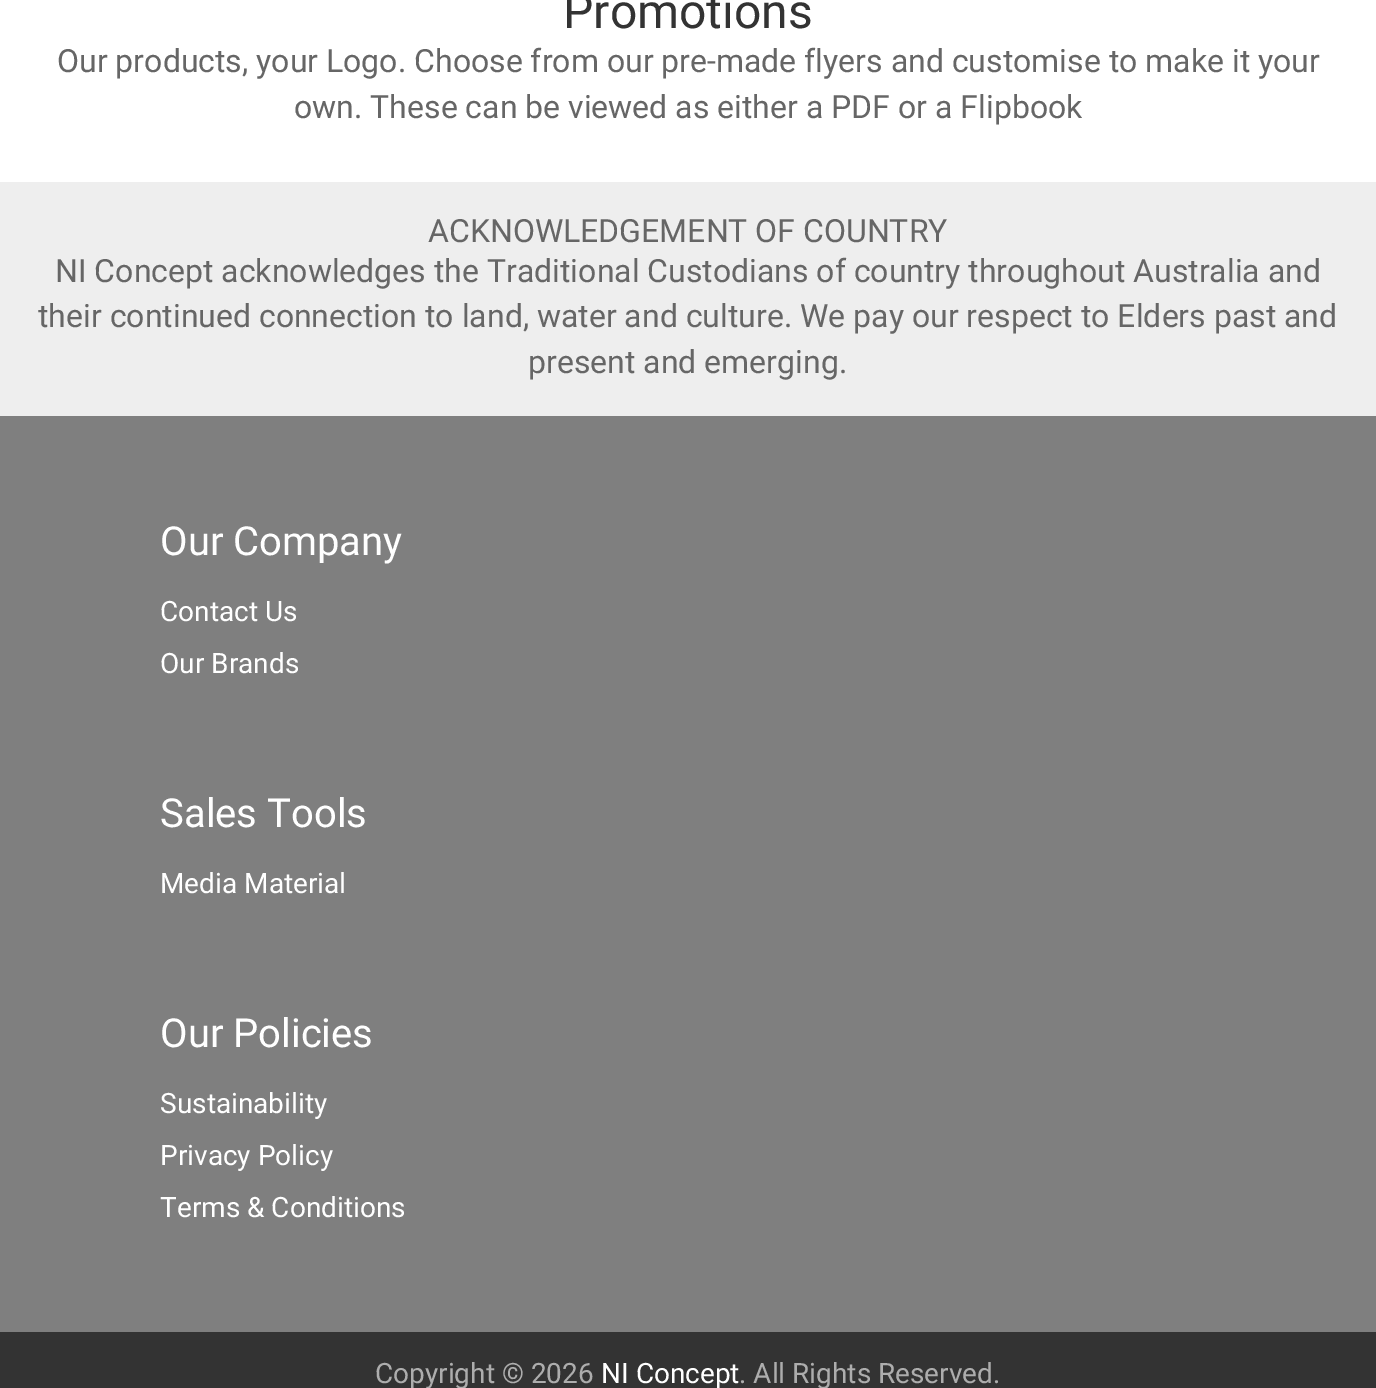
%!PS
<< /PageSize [1376 1388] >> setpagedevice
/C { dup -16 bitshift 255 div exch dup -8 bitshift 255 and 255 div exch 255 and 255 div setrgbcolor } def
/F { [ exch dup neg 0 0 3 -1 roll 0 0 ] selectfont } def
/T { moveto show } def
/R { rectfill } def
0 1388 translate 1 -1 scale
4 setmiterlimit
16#FFFFFF C
0 0 1376 1388 R
/Roboto-Regular 48 F
16#333333 C
(Promotions) 563 28 T
/Roboto-Regular 32 F
16#666666 C
(Our products, your Logo. Choose from our pre-made flyers and customise to make it your) 57 72 T
(own. These can be viewed as either a PDF or a Flipbook) 294 118 T
16#EEEEEE C
0 182 1376 234 R
16#666666 C
(ACKNOWLEDGEMENT OF COUNTRY) 428 242 T
(NI Concept acknowledges the Traditional Custodians of country throughout Australia and) 55 282 T
(their continued connection to land, water and culture. We pay our respect to Elders past and) 38 327 T
(present and emerging.) 528 373 T
16#7F7F7F C
0 416 1376 916 R
/Roboto-Regular 40 F
16#FFFFFF C
(Our Company) 160 555 T
/Roboto-Regular 28 F
(Contact Us) 160 621 T
(Our Brands) 160 673 T
/Roboto-Regular 40 F
(Sales Tools) 160 827 T
/Roboto-Regular 28 F
(Media Material) 160 893 T
/Roboto-Regular 40 F
(Our Policies) 160 1047 T
/Roboto-Regular 28 F
(Sustainability) 160 1113 T
(Privacy Policy) 160 1165 T
(Terms & Conditions) 160 1217 T
16#333333 C
0 1332 1376 56 R
16#ADADAD C
(Copyright © 2026) 375 1383 T
16#FFFFFF C
(NI Concept) 601 1383 T
16#ADADAD C
(. All Rights Reserved.) 739 1383 T
showpage
